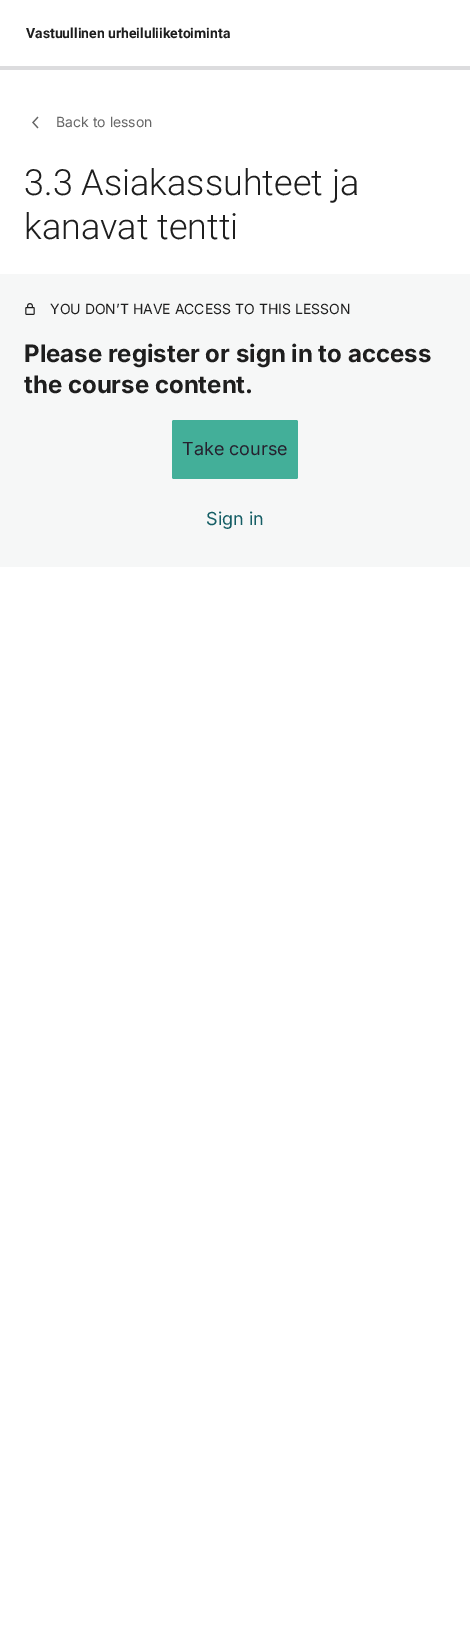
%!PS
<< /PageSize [470 1633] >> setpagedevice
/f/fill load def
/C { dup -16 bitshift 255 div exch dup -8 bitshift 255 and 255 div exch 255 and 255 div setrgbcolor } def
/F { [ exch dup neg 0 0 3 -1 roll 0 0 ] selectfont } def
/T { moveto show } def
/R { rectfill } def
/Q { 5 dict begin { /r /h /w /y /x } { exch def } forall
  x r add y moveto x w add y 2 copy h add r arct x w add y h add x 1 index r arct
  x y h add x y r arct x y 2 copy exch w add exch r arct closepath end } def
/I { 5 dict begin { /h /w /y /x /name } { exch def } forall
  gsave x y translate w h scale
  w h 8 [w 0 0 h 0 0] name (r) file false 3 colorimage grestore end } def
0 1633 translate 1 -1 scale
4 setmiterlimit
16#FFFFFF C
0 0 470 1633 R
/Roboto-Bold 14 F
16#1E1E1E C
(Vastuullinen urheiluliiketoiminta) 26 38 T
16#DCDCDE C
0 66 470 4 R
(1.rgb) 32 116 7 13 I
/Inter-Regular 14 F
16#666666 C
(Back to lesson) 56 127 T
/Roboto-Light 36 F
16#1E1E1E C
(3.3 Asiakassuhteet ja) 24 195 T
(kanavat tentti) 24 239 T
16#F6F7F7 C
0 274 470 293 R
(2.rgb) 25 303 10 12 I
/Inter-Regular 14 F
16#1E1E1E C
(YOU DON’T HAVE ACCESS TO THIS LESSON) 50 314 T
/Inter-Bold 24 F
(Please register or sign in to access) 24 362 T
(the course content.) 24 393 T
16#43AF99 C
172 420 126 59 2 Q f
/Inter-Regular 18 F
16#26212E C
(Take course) 182 455 T
16#155E65 C
(Sign in) 206 525 T
showpage
